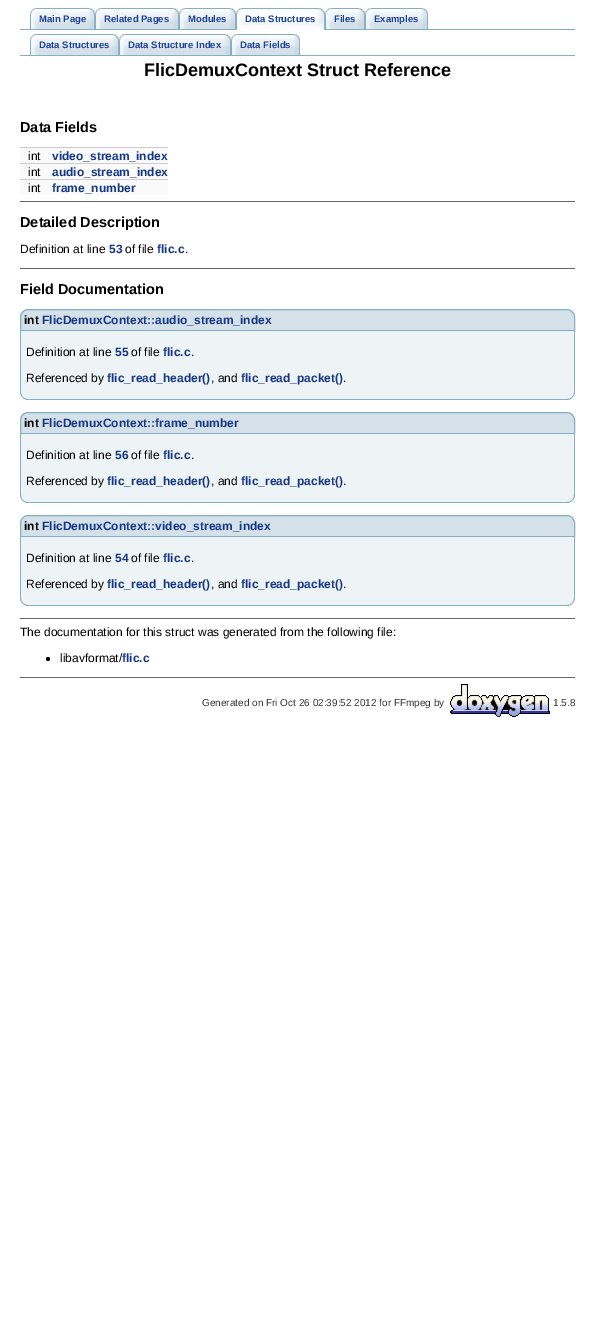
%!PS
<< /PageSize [595 1318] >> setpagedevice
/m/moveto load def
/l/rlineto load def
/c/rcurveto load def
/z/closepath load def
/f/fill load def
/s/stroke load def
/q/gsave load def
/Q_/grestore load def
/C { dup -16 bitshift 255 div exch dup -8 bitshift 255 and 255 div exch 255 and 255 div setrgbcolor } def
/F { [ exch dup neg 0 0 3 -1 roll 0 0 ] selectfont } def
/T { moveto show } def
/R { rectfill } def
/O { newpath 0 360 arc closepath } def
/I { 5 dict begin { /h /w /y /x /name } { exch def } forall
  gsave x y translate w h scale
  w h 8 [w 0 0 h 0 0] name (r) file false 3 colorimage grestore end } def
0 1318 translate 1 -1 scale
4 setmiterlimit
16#FFFFFF C
0 0 595 1318 R
16#84B0C7 C
20 29 555 1 R
(1.rgb) 39 8 56 21 I
(2.rgb) 30 8 9 21 I
/LiberationSans-Bold 9.5 F
16#1A419D C
(Main Page) 39 22 T
(3.rgb) 104 8 75 21 I
(2.rgb) 95 8 9 21 I
(Related Pages) 104 22 T
(4.rgb) 188 8 48 21 I
(2.rgb) 179 8 9 21 I
(Modules) 188 22 T
(5.rgb) 243 8 82 22 I
(6.rgb) 236 8 7 22 I
(Data Structures) 245 22 T
(7.rgb) 334 8 31 21 I
(2.rgb) 325 8 9 21 I
(Files) 334 22 T
(8.rgb) 374 8 54 21 I
(2.rgb) 365 8 9 21 I
(Examples) 374 22 T
16#84B0C7 C
20 55 555 1 R
(9.rgb) 39 34 80 21 I
(2.rgb) 30 34 9 21 I
16#1A419D C
(Data Structures) 39 48 T
(10.rgb) 128 34 103 21 I
(2.rgb) 119 34 9 21 I
(Data Structure Index) 128 48 T
(11.rgb) 240 34 60 21 I
(2.rgb) 231 34 9 21 I
(Data Fields) 240 48 T
/LiberationSans-Bold 18 F
16#000000 C
(FlicDemuxContext Struct Reference) 144 76 T
/LiberationSans-Bold 14.5 F
(Data Fields) 20 132 T
16#FAFAFA C
20 148 148 15 R
16#CCCCCC C
20 147 148 1 R
/LiberationSans-Regular 12 F
16#000000 C
(int) 28 160 T
/LiberationSans-Bold 12 F
16#153788 C
(video_stream_index) 52 160 T
16#FAFAFA C
20 164 148 15 R
16#CCCCCC C
20 163 148 1 R
/LiberationSans-Regular 12 F
16#000000 C
(int) 28 176 T
/LiberationSans-Bold 12 F
16#153788 C
(audio_stream_index) 52 176 T
16#FAFAFA C
20 180 148 15 R
16#CCCCCC C
20 179 148 1 R
/LiberationSans-Regular 12 F
16#000000 C
(int) 28 192 T
/LiberationSans-Bold 12 F
16#153788 C
(frame_number) 52 192 T
16#666666 C
20 201 555 1 R
/LiberationSans-Bold 14.5 F
16#000000 C
(Detailed Description) 20 227 T
/LiberationSans-Regular 12 F
(Definition at line) 20 253 T
/LiberationSans-Bold 12 F
16#153788 C
(53) 109 253 T
/LiberationSans-Regular 12 F
16#000000 C
(of file) 125 253 T
/LiberationSans-Bold 12 F
16#153788 C
(flic.c) 157 253 T
/LiberationSans-Regular 12 F
16#000000 C
(.) 185 253 T
16#666666 C
20 268 555 1 R
/LiberationSans-Bold 14.5 F
16#000000 C
(Field Documentation) 20 294 T
16#D5E1E8 C
28 309.5 m 539 0 l 4 0 7.5 3.5 7.5 7.5 c 0 13.5 l -554 0 l 0 -13.5 l 0 -4 3.5 -7.5 7.5 -7.5 c z q f Q_
16#84B0C7 C
s
/LiberationSans-Bold 12 F
16#000000 C
(int) 24 324 T
16#153788 C
(FlicDemuxContext::audio_stream_index) 42 324 T
16#EEF3F5 C
21 331 m 553 0 l 0 61 l 0 4 -3 7 -7 7 c -539 0 l -4 0 -7 -3 -7 -7 c z f
16#84B0C7 C
20 331 m 555 0 l 0 61 l 0 4 -4 8 -8 8 c -539 0 l -4 0 -8 -4 -8 -8 c z 21 331 m 553 0 l 0 61 l 0 4 -3 7 -7 7 c -539 0 l -4 0 -7 -3 -7 -7 c z eofill
/LiberationSans-Regular 12 F
16#000000 C
(Definition at line) 26 356 T
/LiberationSans-Bold 12 F
16#153788 C
(55) 115 356 T
/LiberationSans-Regular 12 F
16#000000 C
(of file) 131 356 T
/LiberationSans-Bold 12 F
16#153788 C
(flic.c) 163 356 T
/LiberationSans-Regular 12 F
16#000000 C
(.) 191 356 T
(Referenced by) 26 382 T
/LiberationSans-Bold 12 F
16#153788 C
(flic_read_header\(\)) 107 382 T
/LiberationSans-Regular 12 F
16#000000 C
(, and) 211 382 T
/LiberationSans-Bold 12 F
16#153788 C
(flic_read_packet\(\)) 241 382 T
/LiberationSans-Regular 12 F
16#000000 C
(.) 343 382 T
16#D5E1E8 C
28 412.5 m 539 0 l 4 0 7.5 3.5 7.5 7.5 c 0 13.5 l -554 0 l 0 -13.5 l 0 -4 3.5 -7.5 7.5 -7.5 c z q f Q_
16#84B0C7 C
s
/LiberationSans-Bold 12 F
16#000000 C
(int) 24 427 T
16#153788 C
(FlicDemuxContext::frame_number) 42 427 T
16#EEF3F5 C
21 434 m 553 0 l 0 61 l 0 4 -3 7 -7 7 c -539 0 l -4 0 -7 -3 -7 -7 c z f
16#84B0C7 C
20 434 m 555 0 l 0 61 l 0 4 -4 8 -8 8 c -539 0 l -4 0 -8 -4 -8 -8 c z 21 434 m 553 0 l 0 61 l 0 4 -3 7 -7 7 c -539 0 l -4 0 -7 -3 -7 -7 c z eofill
/LiberationSans-Regular 12 F
16#000000 C
(Definition at line) 26 459 T
/LiberationSans-Bold 12 F
16#153788 C
(56) 115 459 T
/LiberationSans-Regular 12 F
16#000000 C
(of file) 131 459 T
/LiberationSans-Bold 12 F
16#153788 C
(flic.c) 163 459 T
/LiberationSans-Regular 12 F
16#000000 C
(.) 191 459 T
(Referenced by) 26 485 T
/LiberationSans-Bold 12 F
16#153788 C
(flic_read_header\(\)) 107 485 T
/LiberationSans-Regular 12 F
16#000000 C
(, and) 211 485 T
/LiberationSans-Bold 12 F
16#153788 C
(flic_read_packet\(\)) 241 485 T
/LiberationSans-Regular 12 F
16#000000 C
(.) 343 485 T
16#D5E1E8 C
28 515.5 m 539 0 l 4 0 7.5 3.5 7.5 7.5 c 0 13.5 l -554 0 l 0 -13.5 l 0 -4 3.5 -7.5 7.5 -7.5 c z q f Q_
16#84B0C7 C
s
/LiberationSans-Bold 12 F
16#000000 C
(int) 24 530 T
16#153788 C
(FlicDemuxContext::video_stream_index) 42 530 T
16#EEF3F5 C
21 537 m 553 0 l 0 61 l 0 4 -3 7 -7 7 c -539 0 l -4 0 -7 -3 -7 -7 c z f
16#84B0C7 C
20 537 m 555 0 l 0 61 l 0 4 -4 8 -8 8 c -539 0 l -4 0 -8 -4 -8 -8 c z 21 537 m 553 0 l 0 61 l 0 4 -3 7 -7 7 c -539 0 l -4 0 -7 -3 -7 -7 c z eofill
/LiberationSans-Regular 12 F
16#000000 C
(Definition at line) 26 562 T
/LiberationSans-Bold 12 F
16#153788 C
(54) 115 562 T
/LiberationSans-Regular 12 F
16#000000 C
(of file) 131 562 T
/LiberationSans-Bold 12 F
16#153788 C
(flic.c) 163 562 T
/LiberationSans-Regular 12 F
16#000000 C
(.) 191 562 T
(Referenced by) 26 588 T
/LiberationSans-Bold 12 F
16#153788 C
(flic_read_header\(\)) 107 588 T
/LiberationSans-Regular 12 F
16#000000 C
(, and) 211 588 T
/LiberationSans-Bold 12 F
16#153788 C
(flic_read_packet\(\)) 241 588 T
/LiberationSans-Regular 12 F
16#000000 C
(.) 343 588 T
16#666666 C
20 618 555 1 R
16#000000 C
(The documentation for this struct was generated from the following file:) 20 636 T
48 659 2 O f
(libavformat/) 60 662 T
/LiberationSans-Bold 12 F
16#153788 C
(flic.c) 122 662 T
16#666666 C
20 677 555 1 R
/LiberationSans-Regular 10 F
16#333333 C
(Generated on Fri Oct 26 02:39:52 2012 for FFmpeg by) 202 706 T
(12.rgb) 450 684 100 33 I
(1.5.8) 553 706 T
showpage
